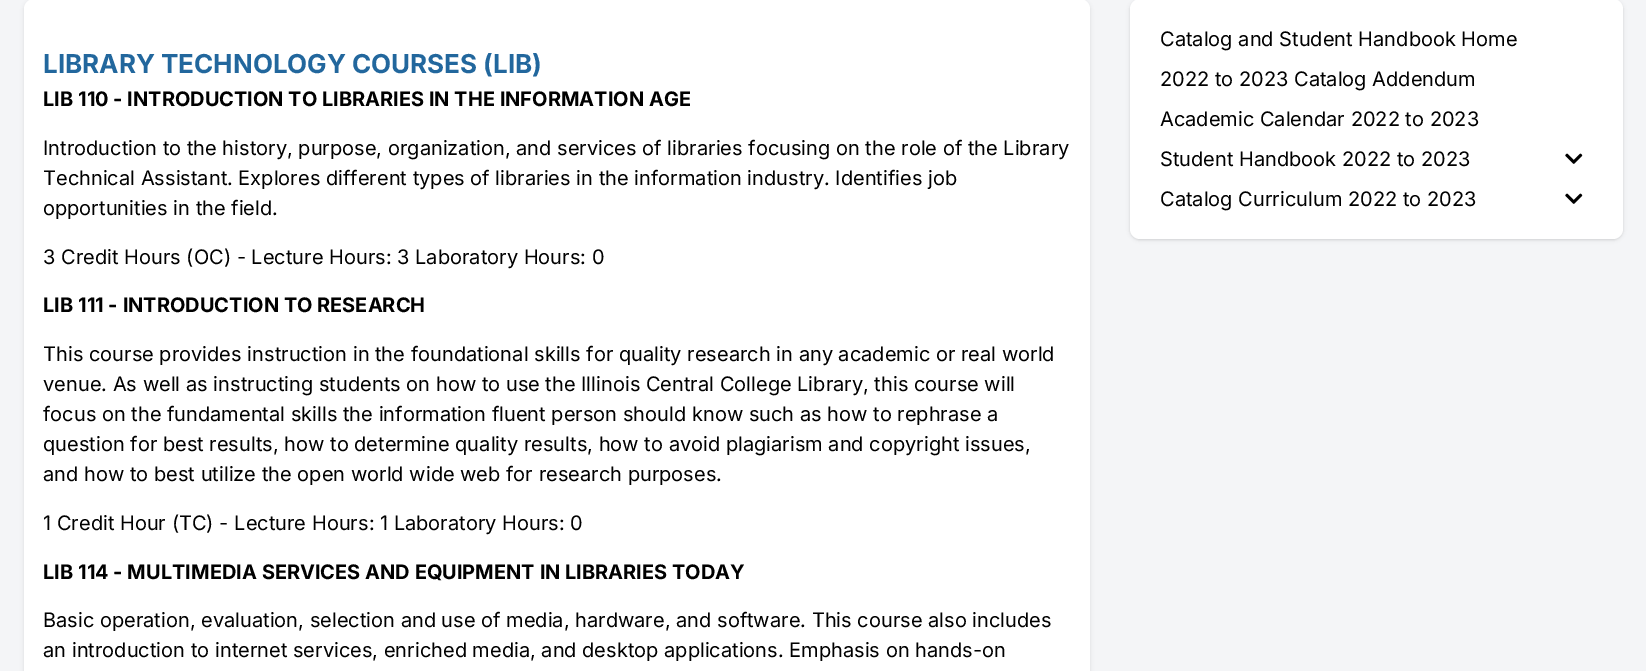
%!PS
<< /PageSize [1646 671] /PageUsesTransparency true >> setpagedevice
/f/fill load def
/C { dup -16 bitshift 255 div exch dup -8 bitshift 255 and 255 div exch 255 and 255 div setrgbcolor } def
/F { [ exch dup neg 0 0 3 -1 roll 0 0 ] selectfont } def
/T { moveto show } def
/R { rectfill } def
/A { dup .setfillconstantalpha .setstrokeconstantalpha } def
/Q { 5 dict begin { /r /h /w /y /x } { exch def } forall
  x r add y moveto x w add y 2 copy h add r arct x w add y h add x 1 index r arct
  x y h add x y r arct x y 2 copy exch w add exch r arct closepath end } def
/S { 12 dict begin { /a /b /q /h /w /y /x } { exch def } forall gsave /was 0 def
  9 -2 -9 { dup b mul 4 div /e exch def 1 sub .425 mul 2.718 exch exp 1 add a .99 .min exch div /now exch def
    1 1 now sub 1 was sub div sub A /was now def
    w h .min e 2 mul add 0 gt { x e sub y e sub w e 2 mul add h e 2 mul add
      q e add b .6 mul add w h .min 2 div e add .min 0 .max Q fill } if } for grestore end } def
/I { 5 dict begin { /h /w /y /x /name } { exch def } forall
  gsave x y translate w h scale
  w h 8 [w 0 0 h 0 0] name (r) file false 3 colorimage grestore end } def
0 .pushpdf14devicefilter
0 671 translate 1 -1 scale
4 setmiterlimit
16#F4F5F7 C
0 0 1646 671 R
16#000000 C
24 0 1066 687 10 2 .1 S
16#FFFFFF C
24 -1 1066 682 10 Q f
/Inter-Bold 26 F
16#22679D C
(LIBRARY TECHNOLOGY COURSES \(LIB\)) 43 73 T
/Inter-Bold 20 F
16#000000 C
(LIB 110 - INTRODUCTION TO LIBRARIES IN THE INFORMATION AGE) 43 106 T
/Inter-Regular 20 F
(Introduction to the history, purpose, organization, and services of libraries focusing on the role of the Library) 43 155 T
(Technical Assistant. Explores different types of libraries in the information industry. Identifies job) 43 185 T
(opportunities in the field.) 43 215 T
(3 Credit Hours \(OC\) - Lecture Hours: 3 Laboratory Hours: 0) 43 264 T
/Inter-Bold 20 F
(LIB 111 - INTRODUCTION TO RESEARCH) 43 312 T
/Inter-Regular 20 F
(This course provides instruction in the foundational skills for quality research in any academic or real world) 43 361 T
(venue. As well as instructing students on how to use the Illinois Central College Library, this course will) 43 391 T
(focus on the fundamental skills the information fluent person should know such as how to rephrase a) 43 421 T
(question for best results, how to determine quality results, how to avoid plagiarism and copyright issues,) 43 451 T
(and how to best utilize the open world wide web for research purposes.) 43 481 T
(1 Credit Hour \(TC\) - Lecture Hours: 1 Laboratory Hours: 0) 43 530 T
/Inter-Bold 20 F
(LIB 114 - MULTIMEDIA SERVICES AND EQUIPMENT IN LIBRARIES TODAY) 43 579 T
/Inter-Regular 20 F
(Basic operation, evaluation, selection and use of media, hardware, and software. This course also includes) 43 627 T
(an introduction to internet services, enriched media, and desktop applications. Emphasis on hands-on) 43 657 T
1130 0 493 240 10 1 .06 S
1130 0 493 240 10 2 .1 S
16#FFFFFF C
1130 -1 493 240 10 Q f
16#000000 C
(Catalog and Student Handbook Home) 1160 46 T
(2022 to 2023 Catalog Addendum) 1160 86 T
(Academic Calendar 2022 to 2023) 1160 126 T
(Student Handbook 2022 to 2023) 1160 166 T
(1.rgb) 1565 153 18 11 I
(Catalog Curriculum 2022 to 2023) 1160 206 T
(1.rgb) 1565 193 18 11 I
.poppdf14devicefilter showpage
